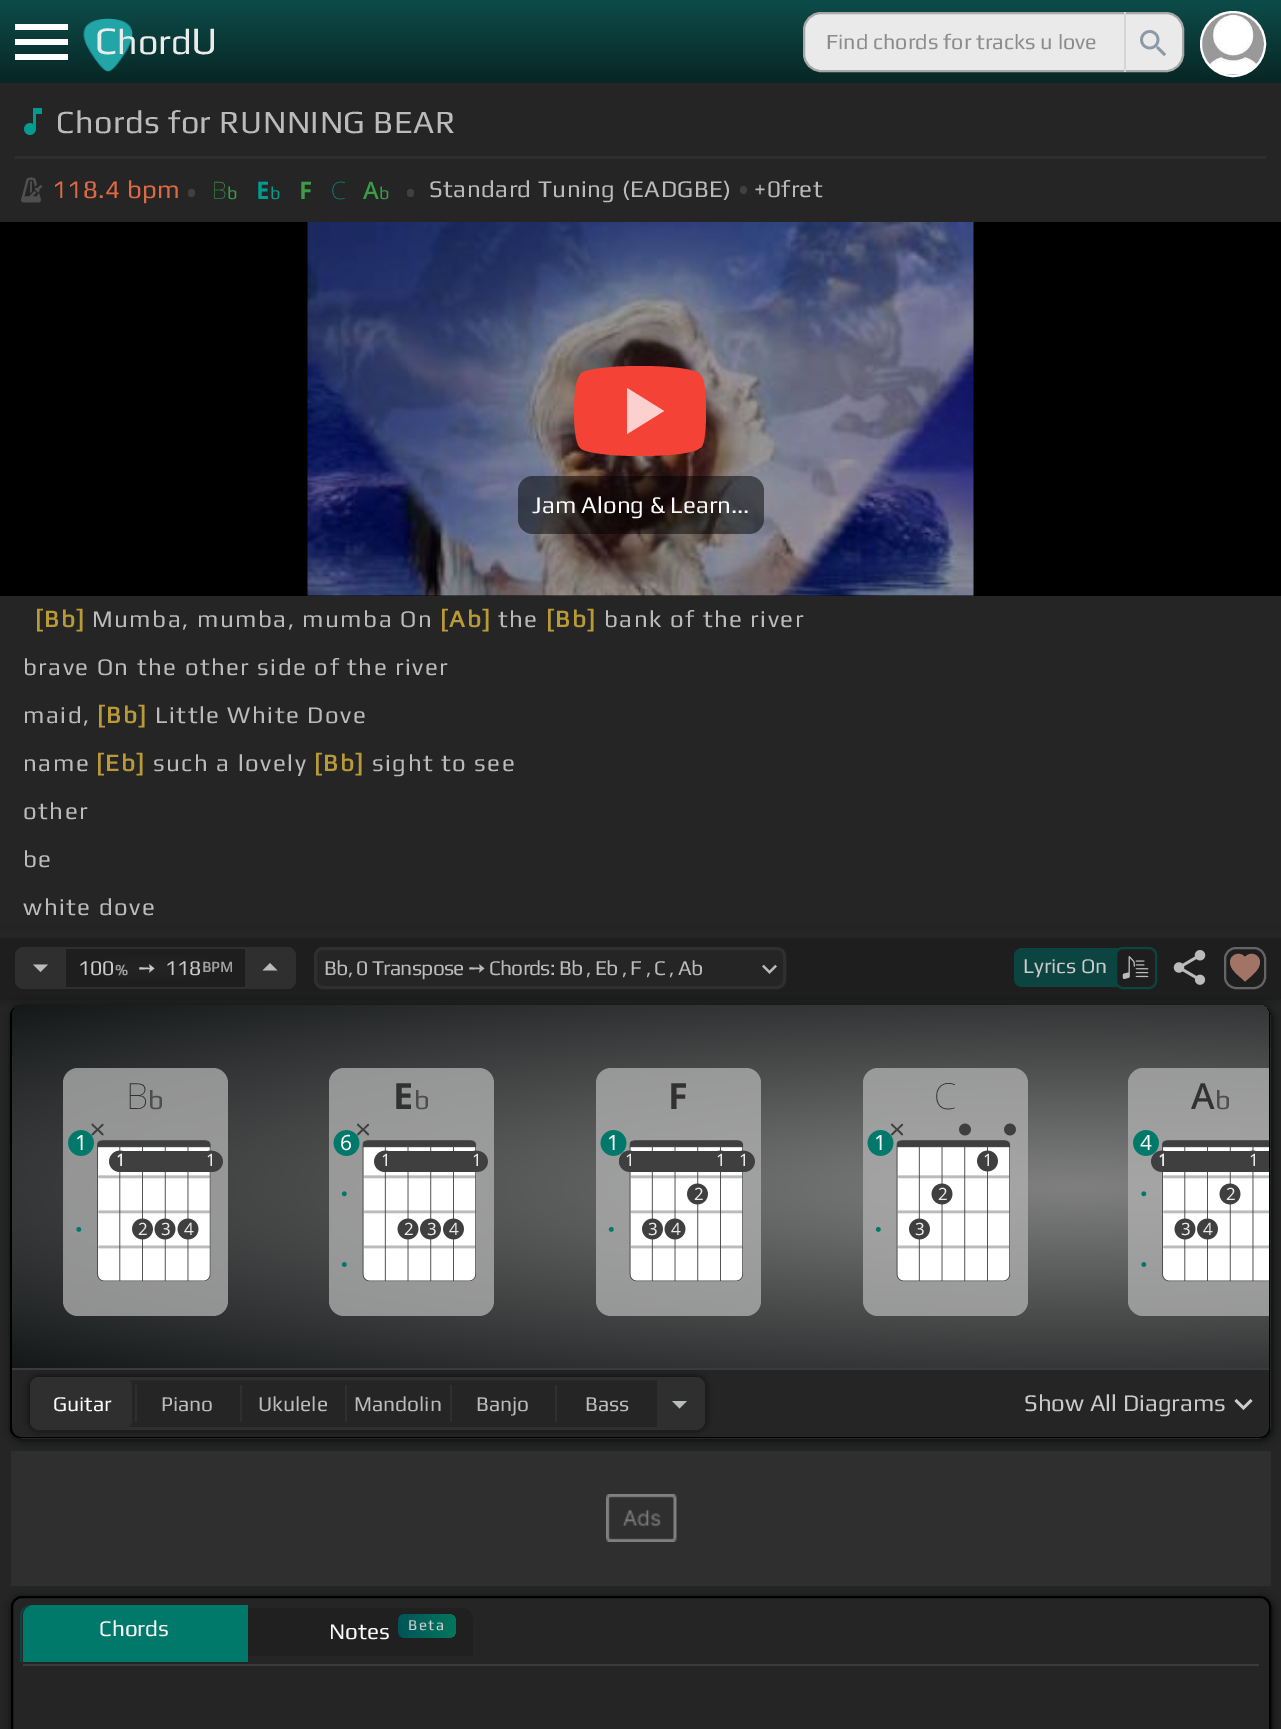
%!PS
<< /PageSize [1281 1729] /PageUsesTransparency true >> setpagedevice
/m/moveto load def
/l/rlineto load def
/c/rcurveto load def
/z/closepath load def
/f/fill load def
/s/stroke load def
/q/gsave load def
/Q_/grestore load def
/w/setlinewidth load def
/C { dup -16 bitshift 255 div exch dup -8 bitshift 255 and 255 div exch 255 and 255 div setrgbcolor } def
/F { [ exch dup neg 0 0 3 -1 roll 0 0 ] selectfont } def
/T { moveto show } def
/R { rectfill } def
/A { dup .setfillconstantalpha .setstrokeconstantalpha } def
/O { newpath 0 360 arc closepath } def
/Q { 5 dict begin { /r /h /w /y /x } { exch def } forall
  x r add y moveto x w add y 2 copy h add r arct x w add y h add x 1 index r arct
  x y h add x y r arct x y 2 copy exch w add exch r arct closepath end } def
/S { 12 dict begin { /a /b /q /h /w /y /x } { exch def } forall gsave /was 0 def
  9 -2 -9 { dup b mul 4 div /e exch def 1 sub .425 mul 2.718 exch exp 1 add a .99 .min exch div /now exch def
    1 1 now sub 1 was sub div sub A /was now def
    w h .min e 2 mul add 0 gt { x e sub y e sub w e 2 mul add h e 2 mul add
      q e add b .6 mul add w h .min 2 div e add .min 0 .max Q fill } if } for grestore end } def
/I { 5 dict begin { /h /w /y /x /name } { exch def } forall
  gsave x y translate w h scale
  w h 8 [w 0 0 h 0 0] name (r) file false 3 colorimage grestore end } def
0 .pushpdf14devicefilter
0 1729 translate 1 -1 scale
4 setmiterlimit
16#252525 C
0 0 1281 1729 R
q 0 0 m 1281 0 l 0 83 l -1281 0 l z clip newpath
<< /ShadingType 2 /ColorSpace /DeviceRGB /Coords [641 0 641 83] /Extend [true true] /Function << /FunctionType 2 /Domain [0 1] /C0 [.051 .298 .286] /C1 [.027 .149 .145] /N 1 >> >> shfill Q_
16#FFFFFF C
15 39 53 6 R
15 24 53 6 R
15 54 53 6 R
(1.rgb) 82 18 51 54 I
/Play-Regular 39 F
16#EBEBEB C
(C) 95 54 T
/Play-Regular 36 F
(hord) 117 54 T
/Play-Regular 39 F
(U) 191 54 T
16#EAEAEA C
804 13 379 58 17 Q q f Q_
16#A7A7A7 C
2 w
s
/Play-Regular 21.6 F
16#8C8C8C C
(Find chords for tracks u love) 826 49 T
16#D5D5D5 C
1124 12 2 60 R
(2.rgb) 1140 30 26 26 I
(3.rgb) 1201 12 64 63 I
16#FFFFFF C
1233 44 32 O s
(4.rgb) 24 108 18 27 I
/Play-Regular 32.4 F
16#BBBBBB C
56 133 m .5 0 (Chords for RUNNING BEAR) ashow
16#2F2F2F C
15 156 1251 3 R
(5.rgb) 21 177 22 26 I
/Play-Regular 25.5 F
16#DE6944 C
52 198 m .5 0 (118.4 bpm) ashow
16#404040 C
188 189 7 8 3.5 Q f
/NotoSans-Thin 24 F
16#3B9E46 C
212 199 m .5 0 (B) ashow
/Play-Regular 18 F
227 199 m .5 0 (b) ashow
/NotoSans-Bold 24 F
16#019C91 C
256 199 m .5 0 (E) ashow
/Play-Regular 18 F
270 199 m .5 0 (b) ashow
/NotoSans-Bold 24 F
16#3B9E46 C
299 199 m .5 0 (F) ashow
/NotoSans-Thin 24 F
16#019C91 C
331 199 m .5 0 (C) ashow
/NotoSans-Medium 24 F
16#3B9E46 C
363 199 m .5 0 (A) ashow
/Play-Regular 18 F
379 199 m .5 0 (b) ashow
16#404040 C
407 189 7 8 3.5 Q f
/Play-Regular 24 F
16#BBBBBB C
429 197 m .5 0 (Standard Tuning \(EADGBE\)) ashow
16#404040 C
740 186 7 8 3.5 Q f
16#BBBBBB C
754 197 m .5 0 (+0fret) ashow
16#050708 C
-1 936 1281 60 0 5 1 S
16#252525 C
0 929 1281 9 R
16#000000 C
0 222 1281 374 R
(6.rgb) 307 222 667 374 I
16#F44336 C
640 366 m 34 0 60 4 60 9 c 0 72 l 0 5 -26 9 -60 9 c -33 0 -60 -4 -60 -9 c 0 -72 l 0 -5 27 -9 60 -9 c z f
581 375 m 119 0 l 4 0 6 16 6 37 c 0 20 -2 36 -6 36 c -119 0 l -4 0 -7 -16 -7 -36 c 0 -21 3 -37 7 -37 c z f
16#FCD0CD C
627 434 m 0 -46 l 37 23 l z f
0.5 A
16#000000 C
518 476 246 58 15 Q f
1 A
16#FAFAFA C
(Jam Along & Learn...) 532 513 T
/Play-Bold 24 F
16#B99A37 C
35 627 m 1.5 0 ([Bb]) ashow
/Play-Regular 24 F
16#BBBBBB C
92 627 m 1.5 0 (Mumba, mumba, mumba On) ashow
/Play-Bold 24 F
16#B99A37 C
440 627 m 1.5 0 ([Ab]) ashow
/Play-Regular 24 F
16#BBBBBB C
498 627 m 1.5 0 (the) ashow
/Play-Bold 24 F
16#B99A37 C
546 627 m 1.5 0 ([Bb]) ashow
/Play-Regular 24 F
16#BBBBBB C
604 627 m 1.5 0 (bank of the river) ashow
23 675 m 1.5 0 (brave On the other side of the river) ashow
23 723 m 1.5 0 (maid,) ashow
/Play-Bold 24 F
16#B99A37 C
97 723 m 1.5 0 ([Bb]) ashow
/Play-Regular 24 F
16#BBBBBB C
155 723 m 1.5 0 (Little White Dove) ashow
23 771 m 1.5 0 (name) ashow
/Play-Bold 24 F
16#B99A37 C
96 771 m 1.5 0 ([Eb]) ashow
/Play-Regular 24 F
16#BBBBBB C
153 771 m 1.5 0 (such a lovely) ashow
/Play-Bold 24 F
16#B99A37 C
314 771 m 1.5 0 ([Bb]) ashow
/Play-Regular 24 F
16#BBBBBB C
372 771 m 1.5 0 (sight to see) ashow
23 819 m 1.5 0 (other) ashow
23 867 m 1.5 0 (be) ashow
23 915 m 1.5 0 (white dove) ashow
16#1E1E1E C
0 938 1281 60 R
16#2F2F2F C
24 947 m 42 0 l 0 42 l -42 0 l -5 0 -9 -4 -9 -9 c 0 -24 l 0 -5 4 -9 9 -9 c z f
16#BABBBB C
33 964.5 m 7.5 7.5 l 7.5 -7.5 l z f
q 100 956 m 110 0 l 0 24 l -110 0 l z clip newpath 155 968 translate 126 28 scale
<< /ShadingType 3 /ColorSpace /DeviceRGB /Coords [0 0 0 0 0 1] /Extend [true true] /Function << /FunctionType 2 /Domain [0 1] /C0 [.141 .141 .141] /C1 [.11 .11 .11] /N 1 >> >> shfill Q_
16#2F2F2F C
66 947 179 2 R
66 987 179 2 R
/Play-Regular 21 F
16#CACACA C
(100) 78 975 T
/Play-Bold 15 F
16#9F9F9F C
(%) 115 975 T
/DejaVuSans-Regular 21 F
16#CACACA C
(➙) 138 975 T
/Play-Regular 21 F
(118) 165 975 T
/Play-Bold 15 F
16#9F9F9F C
(BPM) 202 972 T
16#2F2F2F C
245 947 m 42 0 l 5 0 9 4 9 9 c 0 24 l 0 5 -4 9 -9 9 c -42 0 l z f
16#BABBBB C
262.5 970.5 m 7.5 -7.5 l 7.5 7.5 l z f
16#252525 C
315.5 948.5 469 39 7.5 Q q f Q_
16#2F2F2F C
3 w
s
/Play-Regular 21 F
16#BBBBBB C
324 975 m -.75 0 (Bb, 0 Transpose) ashow
/DejaVuSans-Regular 21 F
468 975 m -.75 0 (➙) ashow
/Play-Regular 21 F
489 975 m -.75 0 (Chords: Bb , Eb , F , C , Ab) ashow
(7.rgb) 762 964 15 10 I
16#0B4440 C
1014 948 143 39 8 Q f
16#CACACA C
(Lyrics On) 1023 973 T
16#1E1E1E C
1116 948 40 40 7 Q q f Q_
16#0B4440 C
2 w
s
(8.rgb) 1122 956 27 23 I
(9.rgb) 1173 950 33 35 I
16#656565 C
1225 948 40 40 11 Q s
16#A17465 C
1245 981.5 m -4.5 -4.5 -11.5 -9 -14 -15 c -4.5 -10 7.5 -17 14 -9.5 c 6.5 -7.5 18.5 -.5 14 9.5 c -2.5 6 -9 10.5 -14 15 c z f
q
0 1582 m 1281 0 l 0 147 l -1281 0 l z 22 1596 m 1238 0 l 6 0 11 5 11 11 c 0 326 l 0 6 -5 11 -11 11 c -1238 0 l -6 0 -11 -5 -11 -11 c 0 -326 l 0 -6 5 -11 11 -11 c z eoclip newpath
16#050708 C
12 1598 1260 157 11 5 1 S
Q_
16#2F2F2F C
11 1451 1260 135 R
q
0 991 m 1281 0 l 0 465 l -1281 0 l z 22 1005 m 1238 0 l 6 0 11 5 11 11 c 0 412 l 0 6 -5 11 -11 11 c -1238 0 l -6 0 -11 -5 -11 -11 c 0 -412 l 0 -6 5 -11 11 -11 c z eoclip newpath
16#050708 C
12 1007 1260 433 11 5 1 S
Q_
16#000000 C
21 1005 m 1239 0 l 6 0 10 5 10 11 c 0 412 l 0 6 -4 10 -10 10 c -1239 0 l -6 0 -11 -4 -11 -10 c 0 -412 l 0 -6 5 -11 11 -11 c z 21 1005 m 1239 0 l 5 0 9 5 9 11 c 0 412 l 0 5 -4 9 -9 9 c -1239 0 l -5 0 -9 -4 -9 -9 c 0 -412 l 0 -6 4 -11 9 -11 c z eofill
q
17 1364 m 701 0 l 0 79 l -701 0 l z 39 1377 m 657 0 l 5 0 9 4 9 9 c 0 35 l 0 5 -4 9 -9 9 c -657 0 l -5 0 -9 -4 -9 -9 c 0 -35 l 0 -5 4 -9 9 -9 c z eoclip newpath
16#0B0B0B C
30 1377 675 53 9 4 1 S
Q_
q 21 1005 m -5 0 -9 5 -9 11 c 0 352 l 1257 0 l 0 -352 l 0 -6 -4 -11 -9 -11 c z clip newpath 1078 1187 translate 1507 257 scale
<< /ShadingType 3 /ColorSpace /DeviceRGB /Coords [0 0 0 0 0 1] /Extend [true true] /Function << /FunctionType 2 /Domain [0 1] /C0 [.502 .502 .502] /C1 [.082 .094 .098] /N 1 >> >> shfill Q_
16#3B3B3B C
12 1368 1257 2 R
0.77 A
16#B0B0B0 C
63 1068 165 248 15 Q f
/NotoSans-Thin 36 F
1 A
16#313131 C
(B) 126 1109 T
/Play-Regular 27 F
16#4D4D4D C
(b) 148 1109 T
(10.rgb) 68 1123 155 159 I
/NotoSans-Regular 21 F
16#FAFAFA C
(1) 75 1150 T
/NotoSans-Regular 17 F
16#EBEBEB C
(1) 116 1166 T
(1) 116 1166 T
(1) 206 1166 T
(2) 138 1235 T
(3) 161 1235 T
(4) 184 1235 T
0.77 A
16#B0B0B0 C
329 1068 165 248 15 Q f
/NotoSans-Bold 36 F
1 A
16#313131 C
(E) 393 1109 T
/Play-Regular 27 F
16#4D4D4D C
(b) 414 1109 T
(11.rgb) 333 1123 155 159 I
/NotoSans-Regular 21 F
16#FAFAFA C
(6) 340 1150 T
/NotoSans-Regular 17 F
16#EBEBEB C
(1) 381 1166 T
(1) 472 1166 T
(2) 404 1235 T
(3) 427 1235 T
(4) 449 1235 T
0.77 A
16#B0B0B0 C
596 1068 165 248 15 Q f
/NotoSans-Bold 36 F
1 A
16#313131 C
(F) 668 1109 T
(12.rgb) 600 1130 155 152 I
/NotoSans-Regular 21 F
16#FAFAFA C
(1) 607 1150 T
/NotoSans-Regular 17 F
16#EBEBEB C
(1) 625 1166 T
(1) 716 1166 T
(1) 739 1166 T
(2) 694 1200 T
(3) 648 1235 T
(4) 671 1235 T
0.77 A
16#B0B0B0 C
863 1068 165 248 15 Q f
/NotoSans-Thin 36 F
1 A
16#313131 C
(C) 934 1109 T
(13.rgb) 867 1123 149 159 I
/NotoSans-Regular 21 F
16#FAFAFA C
(1) 874 1150 T
/NotoSans-Regular 17 F
16#EBEBEB C
(1) 983 1166 T
(2) 938 1200 T
(3) 915 1235 T
0.77 A
16#B0B0B0 C
1143 1068 m 126 0 l 0 248 l -126 0 l -8 0 -15 -7 -15 -15 c 0 -218 l 0 -8 7 -15 15 -15 c z f
/NotoSans-Medium 36 F
1 A
16#313131 C
(A) 1191 1109 T
/Play-Regular 27 F
16#4D4D4D C
(b) 1215 1109 T
(14.rgb) 1133 1130 136 152 I
/NotoSans-Regular 21 F
16#FAFAFA C
(4) 1140 1150 T
/NotoSans-Regular 17 F
16#EBEBEB C
(1) 1158 1166 T
(1) 1158 1166 T
(1) 1249 1166 T
(2) 1226 1200 T
(3) 1181 1235 T
(4) 1203 1235 T
16#2F2F2F C
3 w
31.5 1378.5 672 50 7.5 Q s
33 1380 99 47 6 Q f
/Play-Regular 21 F
16#FAFAFA C
(Guitar) 53 1411 T
16#2F2F2F C
135 1385 2 37 R
16#BBBBBB C
(Piano) 161 1411 T
16#2F2F2F C
240 1385 2 37 R
16#BBBBBB C
(Ukulele) 258 1411 T
16#2F2F2F C
345 1385 2 37 R
16#BBBBBB C
(Mandolin) 354 1411 T
16#2F2F2F C
450 1385 2 37 R
16#BBBBBB C
(Banjo) 476 1411 T
16#2F2F2F C
555 1385 2 37 R
16#BBBBBB C
(Bass) 585 1411 T
16#2F2F2F C
657 1380 45 47 R
16#BABBBB C
672 1401 m 7.5 7.5 l 7.5 -7.5 l z f
/Play-Regular 24 F
16#CACACA C
(Show All Diagrams) 1024 1411 T
16#CDCDCD C
1250.5 1399 m -7 7 l -7 -7 l -2 2 l 9 9 l 9 -9 l z f
(15.rgb) 606 1494 71 48 I
16#000000 C
2 w
12 1597 1258 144 10 Q s
16#3B3B3B C
23 1664 1236 2 R
16#0B4440 C
31 1605 m -6 0 -11 5 -11 11 c 0 46 l 2 0 l 0 -46 l 0 -6 5 -11 11 -11 c z f
16#00796B C
34 1605 m 214 0 l 0 57 l -225 0 l 0 -46 l 0 -6 5 -11 11 -11 c z f
/Play-Regular 22.5 F
16#FAFAFA C
(Chords) 99 1636 T
16#202020 C
248 1608 m 214 0 l 6 0 11 5 11 11 c 0 37 l -225 0 l z f
16#FAFAFA C
(Notes) 329 1639 T
q 398 1614 58 24 8 Q clip newpath
<< /ShadingType 2 /ColorSpace /DeviceRGB /Coords [391 1626 462 1626] /Extend [true true] /Function << /FunctionType 2 /Domain [0 1] /C0 [0 .314 .345] /C1 [.012 .482 .365] /N 1 >> >> shfill Q_
/Play-Regular 15 F
16#D0D0D0 C
408 1630 m 1.5 0 (Beta) ashow
.poppdf14devicefilter showpage
